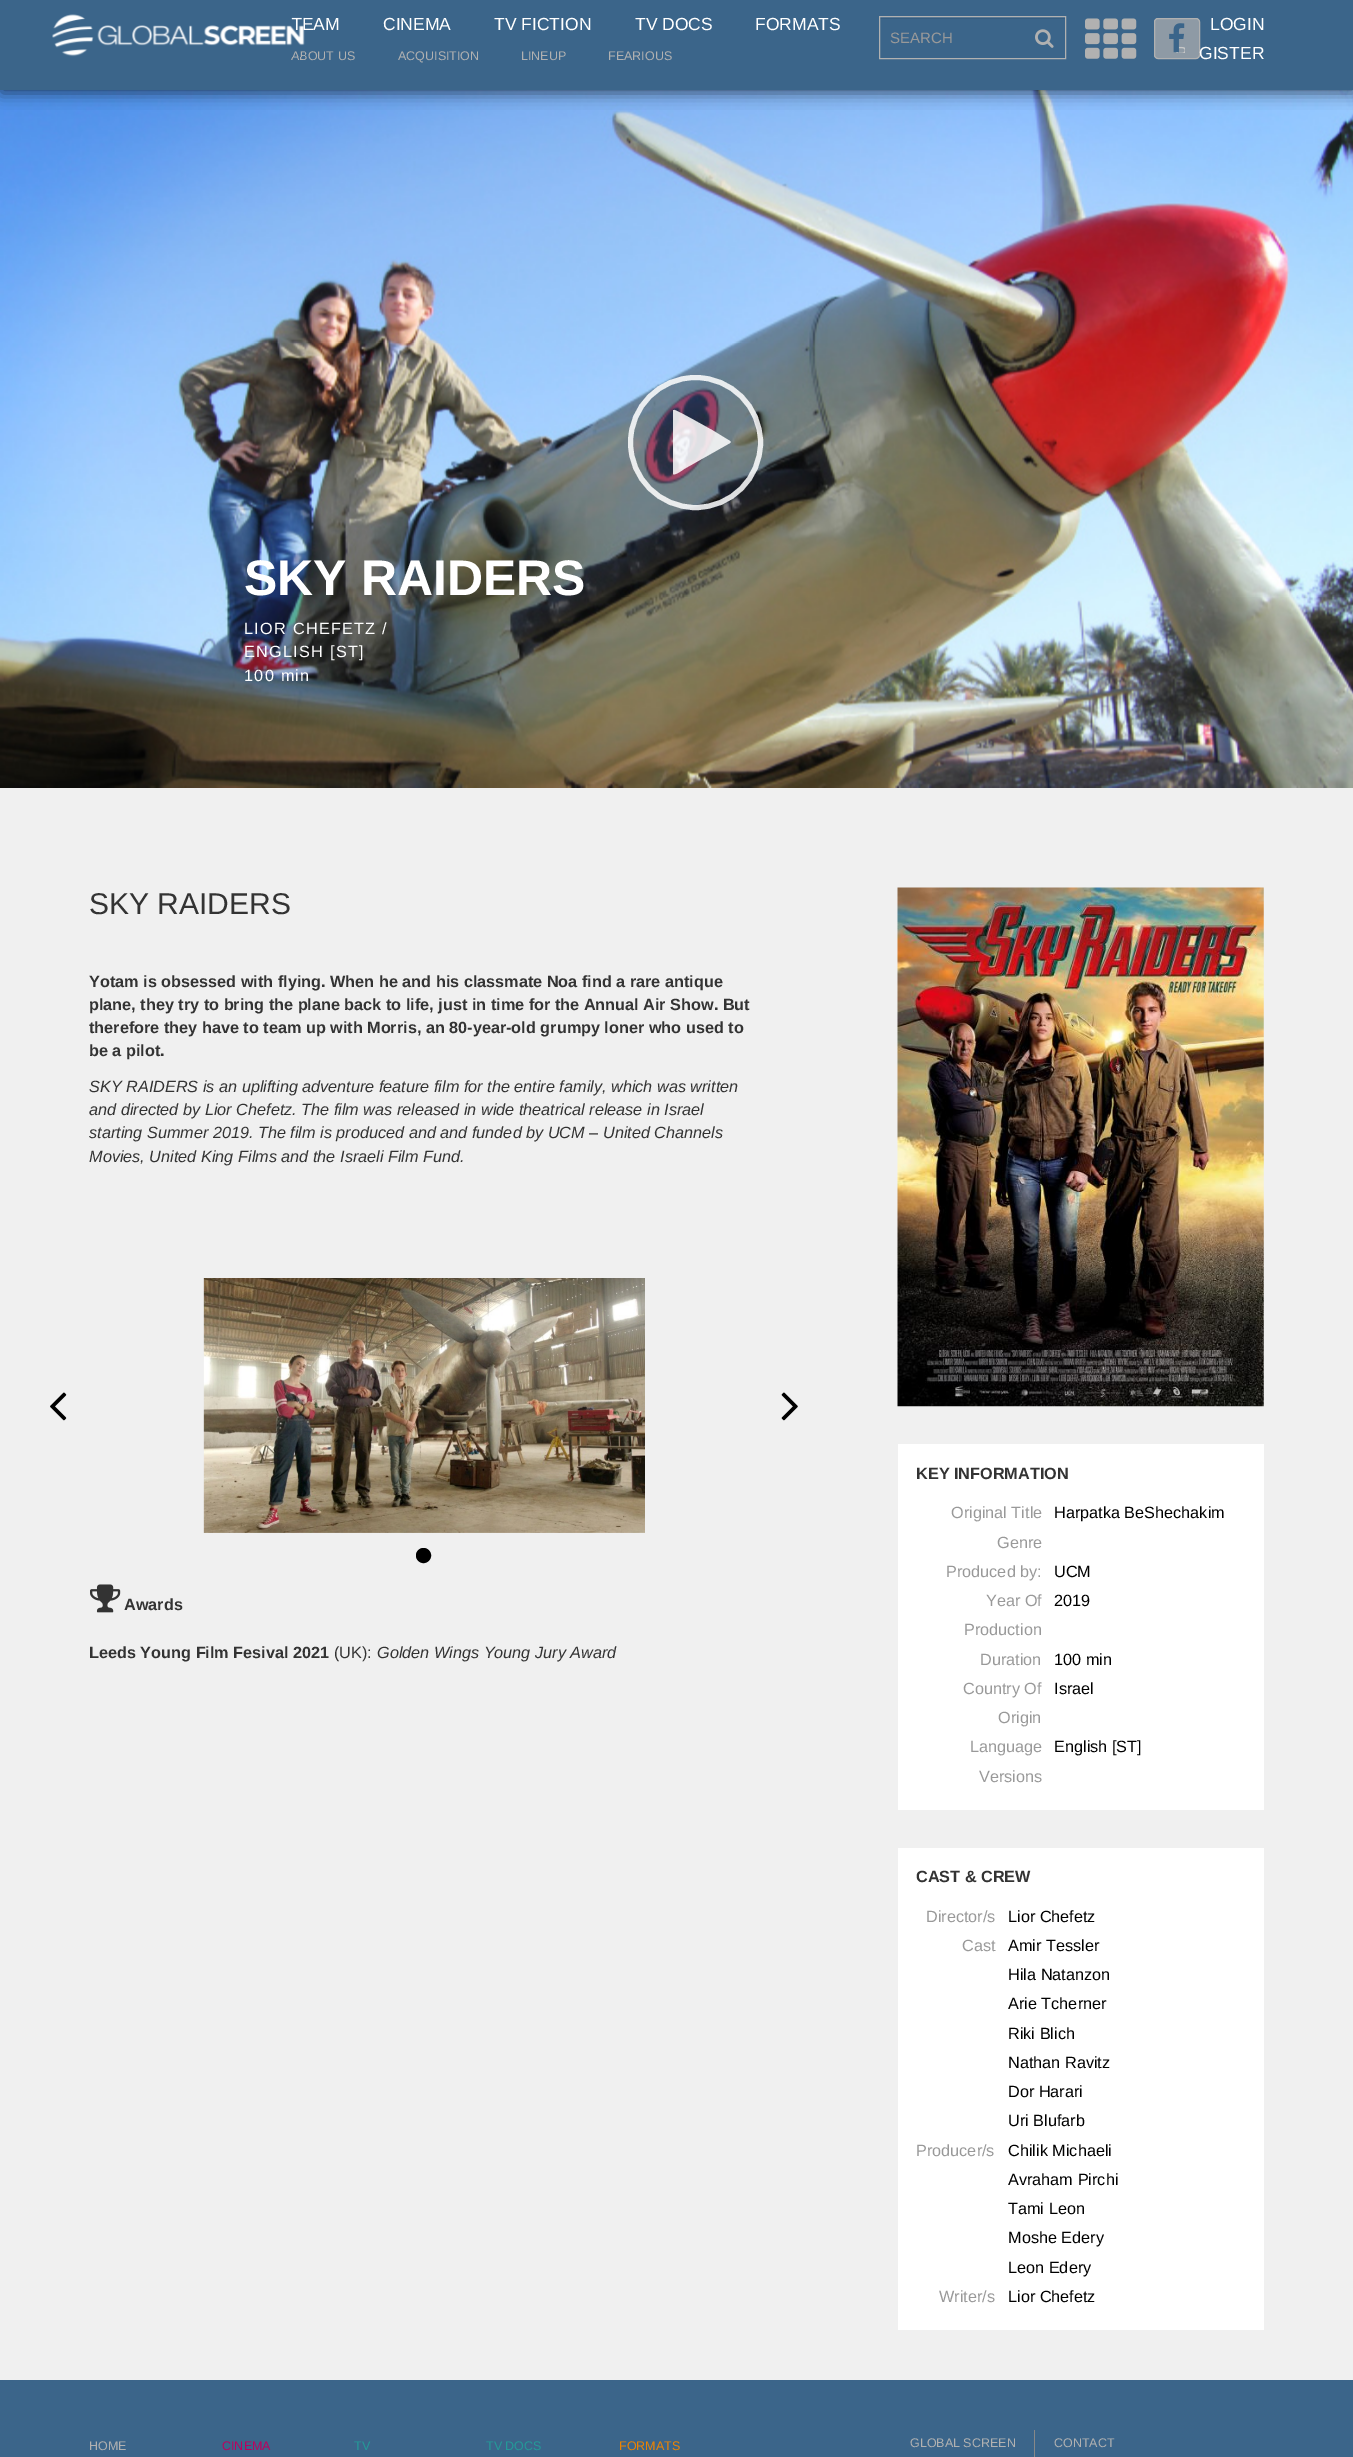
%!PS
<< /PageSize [1353 2457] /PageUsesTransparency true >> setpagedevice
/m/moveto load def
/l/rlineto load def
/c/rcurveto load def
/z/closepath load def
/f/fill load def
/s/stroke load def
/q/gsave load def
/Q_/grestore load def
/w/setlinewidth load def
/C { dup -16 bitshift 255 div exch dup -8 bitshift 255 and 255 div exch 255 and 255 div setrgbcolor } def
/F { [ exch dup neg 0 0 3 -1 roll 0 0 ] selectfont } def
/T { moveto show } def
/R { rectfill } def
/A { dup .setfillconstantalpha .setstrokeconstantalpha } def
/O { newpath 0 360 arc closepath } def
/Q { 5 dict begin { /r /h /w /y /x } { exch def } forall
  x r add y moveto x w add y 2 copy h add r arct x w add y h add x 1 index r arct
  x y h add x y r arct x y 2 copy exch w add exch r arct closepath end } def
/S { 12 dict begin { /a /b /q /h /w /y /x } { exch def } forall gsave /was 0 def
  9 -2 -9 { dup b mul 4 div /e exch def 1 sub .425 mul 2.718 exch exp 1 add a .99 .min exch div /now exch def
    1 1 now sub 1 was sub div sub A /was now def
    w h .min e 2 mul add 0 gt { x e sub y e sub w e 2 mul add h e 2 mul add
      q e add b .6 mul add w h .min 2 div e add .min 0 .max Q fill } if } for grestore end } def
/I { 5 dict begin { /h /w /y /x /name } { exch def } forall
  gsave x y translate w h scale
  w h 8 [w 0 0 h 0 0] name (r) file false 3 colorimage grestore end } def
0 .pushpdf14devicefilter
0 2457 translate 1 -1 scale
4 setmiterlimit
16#F0F0F0 C
0 0 1353 2457 R
(5.rgb) 0 90 1353 698 I
16#000000 C
1 3 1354 90 0 7.5 .55 S
16#3B658A C
0 0 1353 90 R
/LiberationSans-Regular 17.5 F
16#FFFFFF C
(TEAM) 291 30 T
/LiberationSans-Regular 12.5 F
16#B1B1B1 C
(ABOUT US) 291 60 T
(1.rgb) 52 14 253 43 I
/LiberationSans-Regular 17.5 F
16#FFFFFF C
(CINEMA) 383 30 T
(TV FICTION) 494 30 T
(TV DOCS) 635 30 T
(FORMATS) 755 30 T
/LiberationSans-Regular 12.5 F
16#B1B1B1 C
(ACQUISITION) 398 60 T
(LINEUP) 521 60 T
(FEARIOUS) 608 60 T
16#375D80 C
880 18 185 1 R
16#B1B1B1 C
879.5 16.5 186 42 rectstroke
/LiberationSans-Regular 15 F
16#999999 C
(SEARCH) 890 43 T
(2.rgb) 1035 29 19 19 I
(3.rgb) 1085 18 52 41 I
0.7 A
16#B1B1B1 C
1154.5 18.5 45 40 3.5 Q f
1 A
1154.5 18.5 45 40 3.5 Q s
(4.rgb) 1169 23 16 30 I
/LiberationSans-Regular 17.5 F
16#FFFFFF C
(LOGIN) 1210 30 T
(GISTER) 1199 59 T
0.85 A
5 w
695.5 442.5 65 O s
730 443 m -46 26 l -1 1 -10 7 -11 5 c 0 -64 l 1 0 l 1 -1 34 18 38 20 c 18 11 l 1 1 l z f
/LiberationSans-Bold 50 F
1 A
(SKY RAIDERS) 244 595 T
/LiberationSans-Regular 16.25 F
244 634 m 1.25 0 (LIOR CHEFETZ /) ashow
244 657 m 1.25 0 (ENGLISH [ST]) ashow
244 681 m 1.25 0 (100 min) ashow
/LiberationSans-Regular 30 F
16#333333 C
(SKY RAIDERS) 89 914 T
/LiberationSans-Bold 16.25 F
(Yotam is obsessed with flying. When he and his classmate Noa find a rare antique) 89 987 T
(plane, they try to bring the plane back to life, just in time for the Annual Air Show. But) 89 1010 T
(therefore they have to team up with Morris, an 80-year-old grumpy loner who used to) 89 1033 T
(be a pilot.) 89 1056 T
/LiberationSans-Italic 16.25 F
(SKY RAIDERS is an uplifting adventure feature film for the entire family, which was written) 89 1092 T
(and directed by Lior Chefetz. The film was released in wide theatrical release in Israel) 89 1115 T
(starting Summer 2019. The film is produced and and funded by UCM – United Channels) 89 1138 T
(Movies, United King Films and the Israeli Film Fund.) 89 1162 T
(6.rgb) 50 1392 17 29 I
(7.rgb) 203 1278 442 255 I
(8.rgb) 781 1392 17 29 I
16#000000 C
423.5 1555.5 7 O q f Q_
1 w
s
(9.rgb) 90 1584 31 29 I
/LiberationSans-Bold 16.25 F
16#333333 C
(Awards) 124 1610 T
(Leeds Young Film Fesival 2021) 89 1658 T
/LiberationSans-Regular 16.25 F
(\(UK\):) 334 1658 T
/LiberationSans-Italic 16.25 F
(Golden Wings Young Jury Award) 377 1658 T
(10.rgb) 897 887 367 520 I
16#FFFFFF C
898 1444 366 366 R
/LiberationSans-Bold 16.25 F
16#333333 C
(KEY INFORMATION) 916 1479 T
/LiberationSans-Regular 16.25 F
16#999999 C
(Original Title) 951 1518 T
16#000000 C
(Harpatka BeShechakim) 1054 1518 T
16#999999 C
(Genre) 997 1548 T
(Produced by:) 946 1577 T
16#000000 C
(UCM) 1054 1577 T
16#999999 C
(Year Of) 986 1606 T
(Production) 964 1635 T
16#000000 C
(2019) 1054 1606 T
16#999999 C
(Duration) 980 1665 T
16#000000 C
(100 min) 1054 1665 T
16#999999 C
(Country Of) 963 1694 T
(Origin) 998 1723 T
16#000000 C
(Israel) 1054 1694 T
16#999999 C
(Language) 970 1752 T
(Versions) 979 1782 T
16#000000 C
(English [ST]) 1054 1752 T
16#FFFFFF C
898 1848 366 482 R
/LiberationSans-Bold 16.25 F
16#333333 C
(CAST & CREW) 916 1882 T
/LiberationSans-Regular 16.25 F
16#999999 C
(Director/s) 926 1922 T
16#000000 C
(Lior Chefetz) 1008 1922 T
16#999999 C
(Cast) 962 1951 T
16#000000 C
(Amir Tessler) 1008 1951 T
(Hila Natanzon) 1008 1980 T
(Arie Tcherner) 1008 2009 T
(Riki Blich) 1008 2039 T
(Nathan Ravitz) 1008 2068 T
(Dor Harari) 1008 2097 T
(Uri Blufarb) 1008 2126 T
16#999999 C
(Producer/s) 916 2156 T
16#000000 C
(Chilik Michaeli) 1008 2156 T
(Avraham Pirchi) 1008 2185 T
(Tami Leon) 1008 2214 T
(Moshe Edery) 1008 2243 T
(Leon Edery) 1008 2273 T
16#999999 C
(Writer/s) 939 2302 T
16#000000 C
(Lior Chefetz) 1008 2302 T
16#3B658A C
0 2380 1353 77 R
/LiberationSans-Regular 12.5 F
16#B1B1B1 C
(HOME) 89 2450 T
16#BD005D C
(CINEMA) 222 2450 T
16#239A98 C
(TV) 354 2450 T
(TV DOCS) 486 2450 T
16#ED8300 C
(FORMATS) 619 2450 T
16#888888 C
1034 2430 1 27 R
16#B1B1B1 C
(GLOBAL SCREEN) 910 2447 T
(CONTACT) 1054 2447 T
.poppdf14devicefilter showpage
